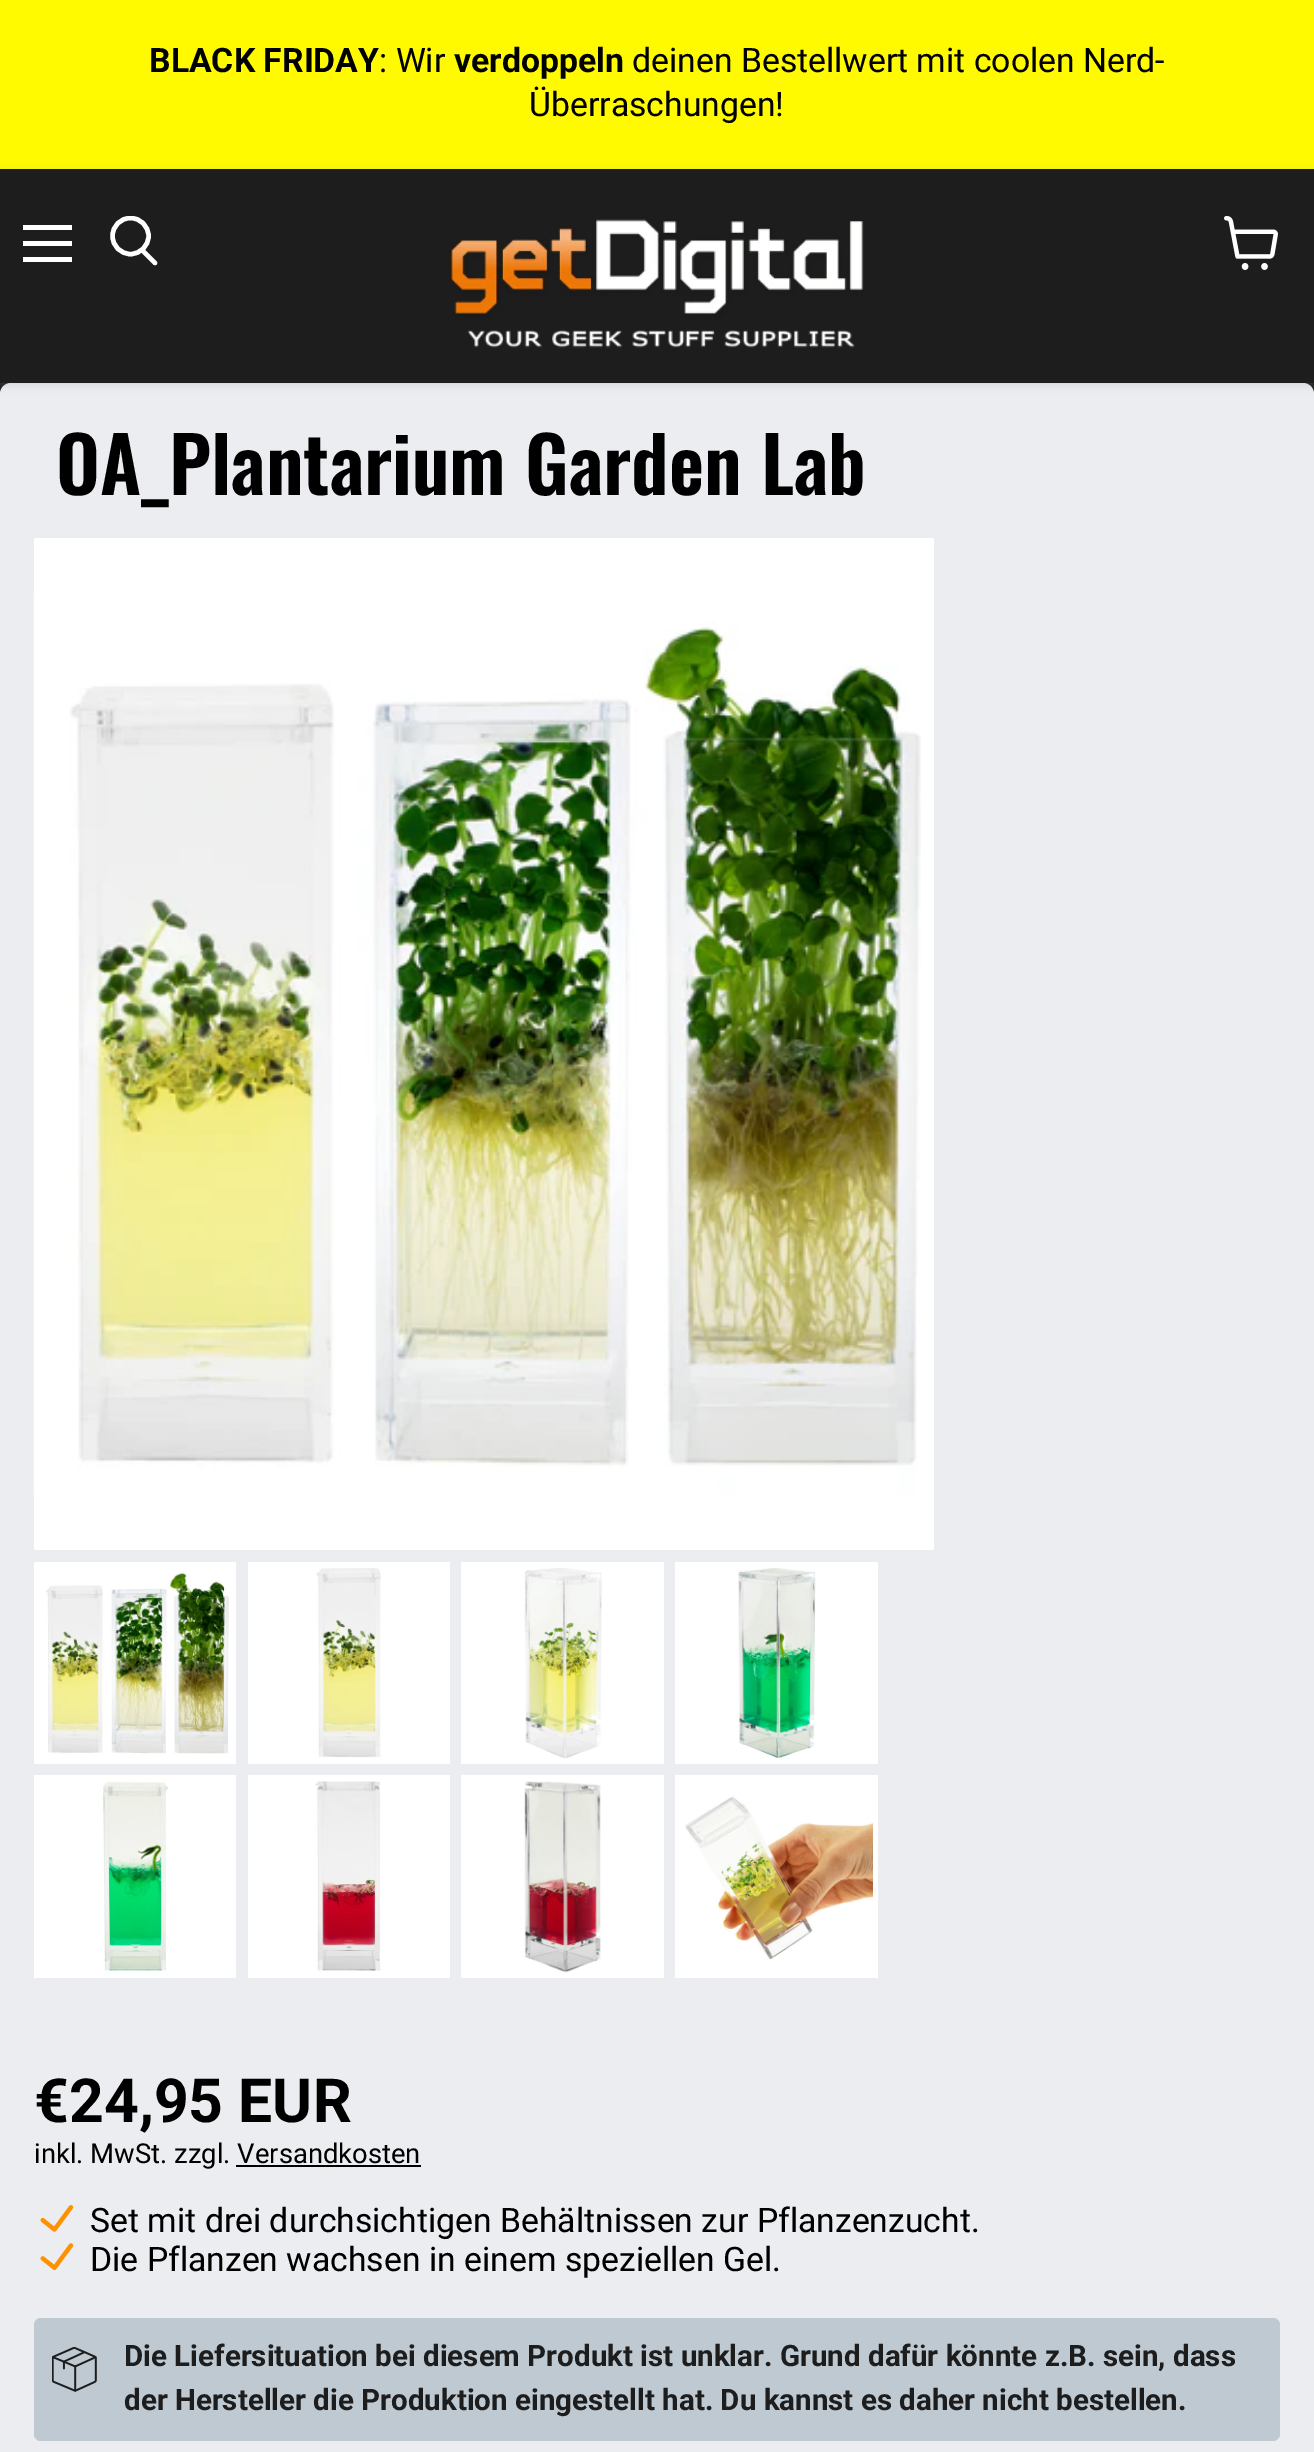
%!PS
<< /PageSize [1314 2452] /PageUsesTransparency true >> setpagedevice
/m/moveto load def
/l/rlineto load def
/f/fill load def
/s/stroke load def
/q/gsave load def
/Q_/grestore load def
/w/setlinewidth load def
/C { dup -16 bitshift 255 div exch dup -8 bitshift 255 and 255 div exch 255 and 255 div setrgbcolor } def
/F { [ exch dup neg 0 0 3 -1 roll 0 0 ] selectfont } def
/T { moveto show } def
/R { rectfill } def
/A { dup .setfillconstantalpha .setstrokeconstantalpha } def
/O { newpath 0 360 arc closepath } def
/Q { 5 dict begin { /r /h /w /y /x } { exch def } forall
  x r add y moveto x w add y 2 copy h add r arct x w add y h add x 1 index r arct
  x y h add x y r arct x y 2 copy exch w add exch r arct closepath end } def
/S { 12 dict begin { /a /b /q /h /w /y /x } { exch def } forall gsave /was 0 def
  9 -2 -9 { dup b mul 4 div /e exch def 1 sub .425 mul 2.718 exch exp 1 add a .99 .min exch div /now exch def
    1 1 now sub 1 was sub div sub A /was now def
    w h .min e 2 mul add 0 gt { x e sub y e sub w e 2 mul add h e 2 mul add
      q e add b .6 mul add w h .min 2 div e add .min 0 .max Q fill } if } for grestore end } def
/I { 5 dict begin { /h /w /y /x /name } { exch def } forall
  gsave x y translate w h scale
  w h 8 [w 0 0 h 0 0] name (r) file false 3 colorimage grestore end } def
0 .pushpdf14devicefilter
0 2452 translate 1 -1 scale
4 setmiterlimit
16#1D1D1D C
0 0 1314 2452 R
16#FFFA00 C
0 0 1314 169 R
/Roboto-Bold 33.75 F
16#000000 C
(BLACK FRIDAY) 149 72 T
/Roboto-Regular 33.75 F
(: Wir) 379 72 T
/Roboto-Bold 33.75 F
(verdoppeln) 454 72 T
/Roboto-Regular 33.75 F
(deinen Bestellwert mit coolen Nerd-) 632 72 T
(Überraschungen!) 529 116 T
16#EBEDF0 C
0 383 1314 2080 11 Q f
16#8E8E8E C
0 171 1314 214 0 4.5 .25 S
16#1D1D1D C
0 169 1314 214 R
16#FFFFFF C
23 225 49 5 R
23 241 49 5 R
23 257 49 5 R
4.5 w
1 setlinecap
155 263 m -12 -12 l s
q
108 216 52 54 rectclip
0 setlinecap
130.5 236 18 O s
Q_
(1.rgb) 449 219 415 129 I
(2.rgb) 1224 216 54 54 I
/Oswald-SemiBold 76.5 F
16#000000 C
(OA_Plantarium Garden Lab) 56 495 T
16#FFFFFF C
34 538 900 1012 R
(3.rgb) 33 594 888 900 I
34 1562 202 202 R
(4.rgb) 46 1572 183 182 I
248 1562 202 202 R
(5.rgb) 316 1568 65 190 I
461 1562 203 202 R
(6.rgb) 524 1568 78 191 I
675 1562 203 202 R
(7.rgb) 738 1568 78 192 I
34 1775 202 203 R
(8.rgb) 102 1781 66 190 I
248 1775 202 203 R
(9.rgb) 315 1781 66 190 I
461 1775 203 203 R
(10.rgb) 524 1781 77 192 I
675 1775 203 203 R
(11.rgb) 685 1796 188 164 I
/Roboto-Bold 60.75 F
16#000000 C
(€24,95 EUR) 34 2122 T
/Roboto-Regular 27.4 F
(inkl. MwSt. zzgl. Versandkosten) 34 2163 T
236 2165 185 2 R
(12.rgb) 40 2205 34 27 I
/Roboto-Regular 33.75 F
(Set mit drei durchsichtigen Behältnissen zur Pflanzenzucht.) 90 2232 T
(13.rgb) 40 2243 34 27 I
(Die Pflanzen wachsen in einem speziellen Gel.) 90 2271 T
16#BEC9D2 C
34 2318 1246 123 7 Q f
(14.rgb) 52 2347 45 45 I
/Roboto-Bold 29.55 F
16#1D1D1D C
(Die Liefersituation bei diesem Produkt ist unklar. Grund dafür könnte z.B. sein, dass) 124 2366 T
(der Hersteller die Produktion eingestellt hat. Du kannst es daher nicht bestellen.) 124 2410 T
.poppdf14devicefilter showpage
